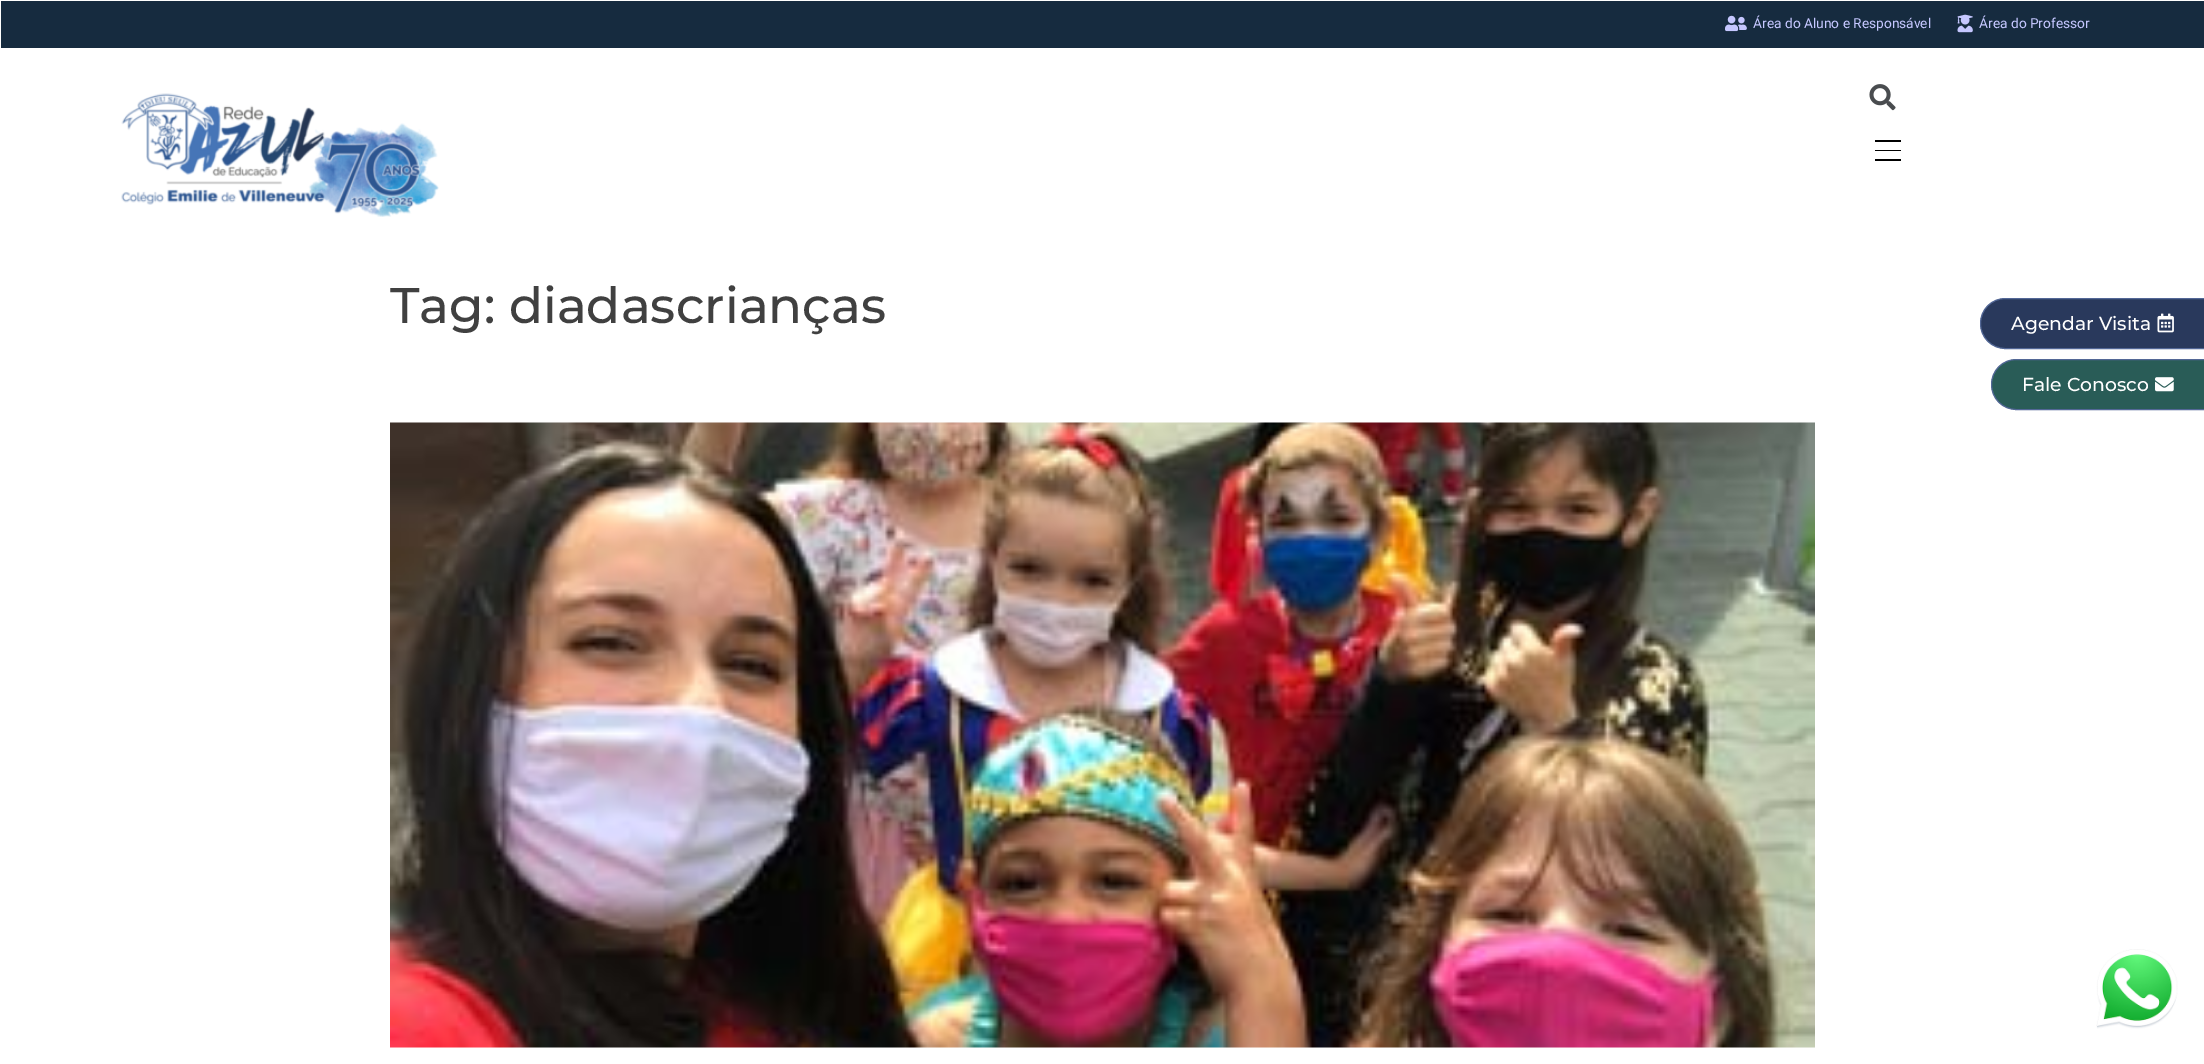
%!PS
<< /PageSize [2204 1064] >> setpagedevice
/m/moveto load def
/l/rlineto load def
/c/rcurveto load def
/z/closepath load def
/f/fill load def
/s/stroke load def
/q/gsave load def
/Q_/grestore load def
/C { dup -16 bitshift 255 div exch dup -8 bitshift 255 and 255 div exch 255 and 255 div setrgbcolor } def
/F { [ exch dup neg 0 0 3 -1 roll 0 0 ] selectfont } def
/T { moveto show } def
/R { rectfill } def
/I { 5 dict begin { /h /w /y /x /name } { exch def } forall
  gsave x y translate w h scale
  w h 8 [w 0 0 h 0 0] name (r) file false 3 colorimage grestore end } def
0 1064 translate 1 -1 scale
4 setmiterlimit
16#FFFFFF C
0 0 2204 1064 R
/Montserrat-Medium 50 F
16#404040 C
(Tag: diadascrianças) 390 323 T
(1.rgb) 390 422 1425 626 I
16#162B3F C
1 1 2203 47 R
(2.rgb) 1725 15 22 17 I
/Roboto-Regular 13.75 F
16#C5C7FF C
(Área do Aluno e Responsável) 1753 28 T
(3.rgb) 1957 14 16 19 I
(Área do Professor) 1979 28 T
(4.rgb) 121 93 318 124 I
(5.rgb) 1869 84 27 27 I
16#000000 C
1875 159 26 2 R
1875 150 26 1 R
1875 140 26 2 R
16#29395C C
2005.5 298.5 m 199 0 l 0 50 l -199 0 l -14 0 -25 -11 -25 -25 c 0 -14 11 -25 25 -25 c z q f Q_
16#526796 C
s
/Montserrat-Medium 18.75 F
16#FFFFFF C
(Agendar Visita) 2011 330 T
(6.rgb) 2157 313 17 20 I
16#295C57 C
2016.5 359.5 m 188 0 l 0 50 l -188 0 l -14 0 -25 -11 -25 -25 c 0 -14 11 -25 25 -25 c z q f Q_
16#526796 C
s
16#FFFFFF C
(Fale Conosco) 2022 391 T
(7.rgb) 2155 377 19 15 I
(8.rgb) 2096 949 82 80 I
showpage
